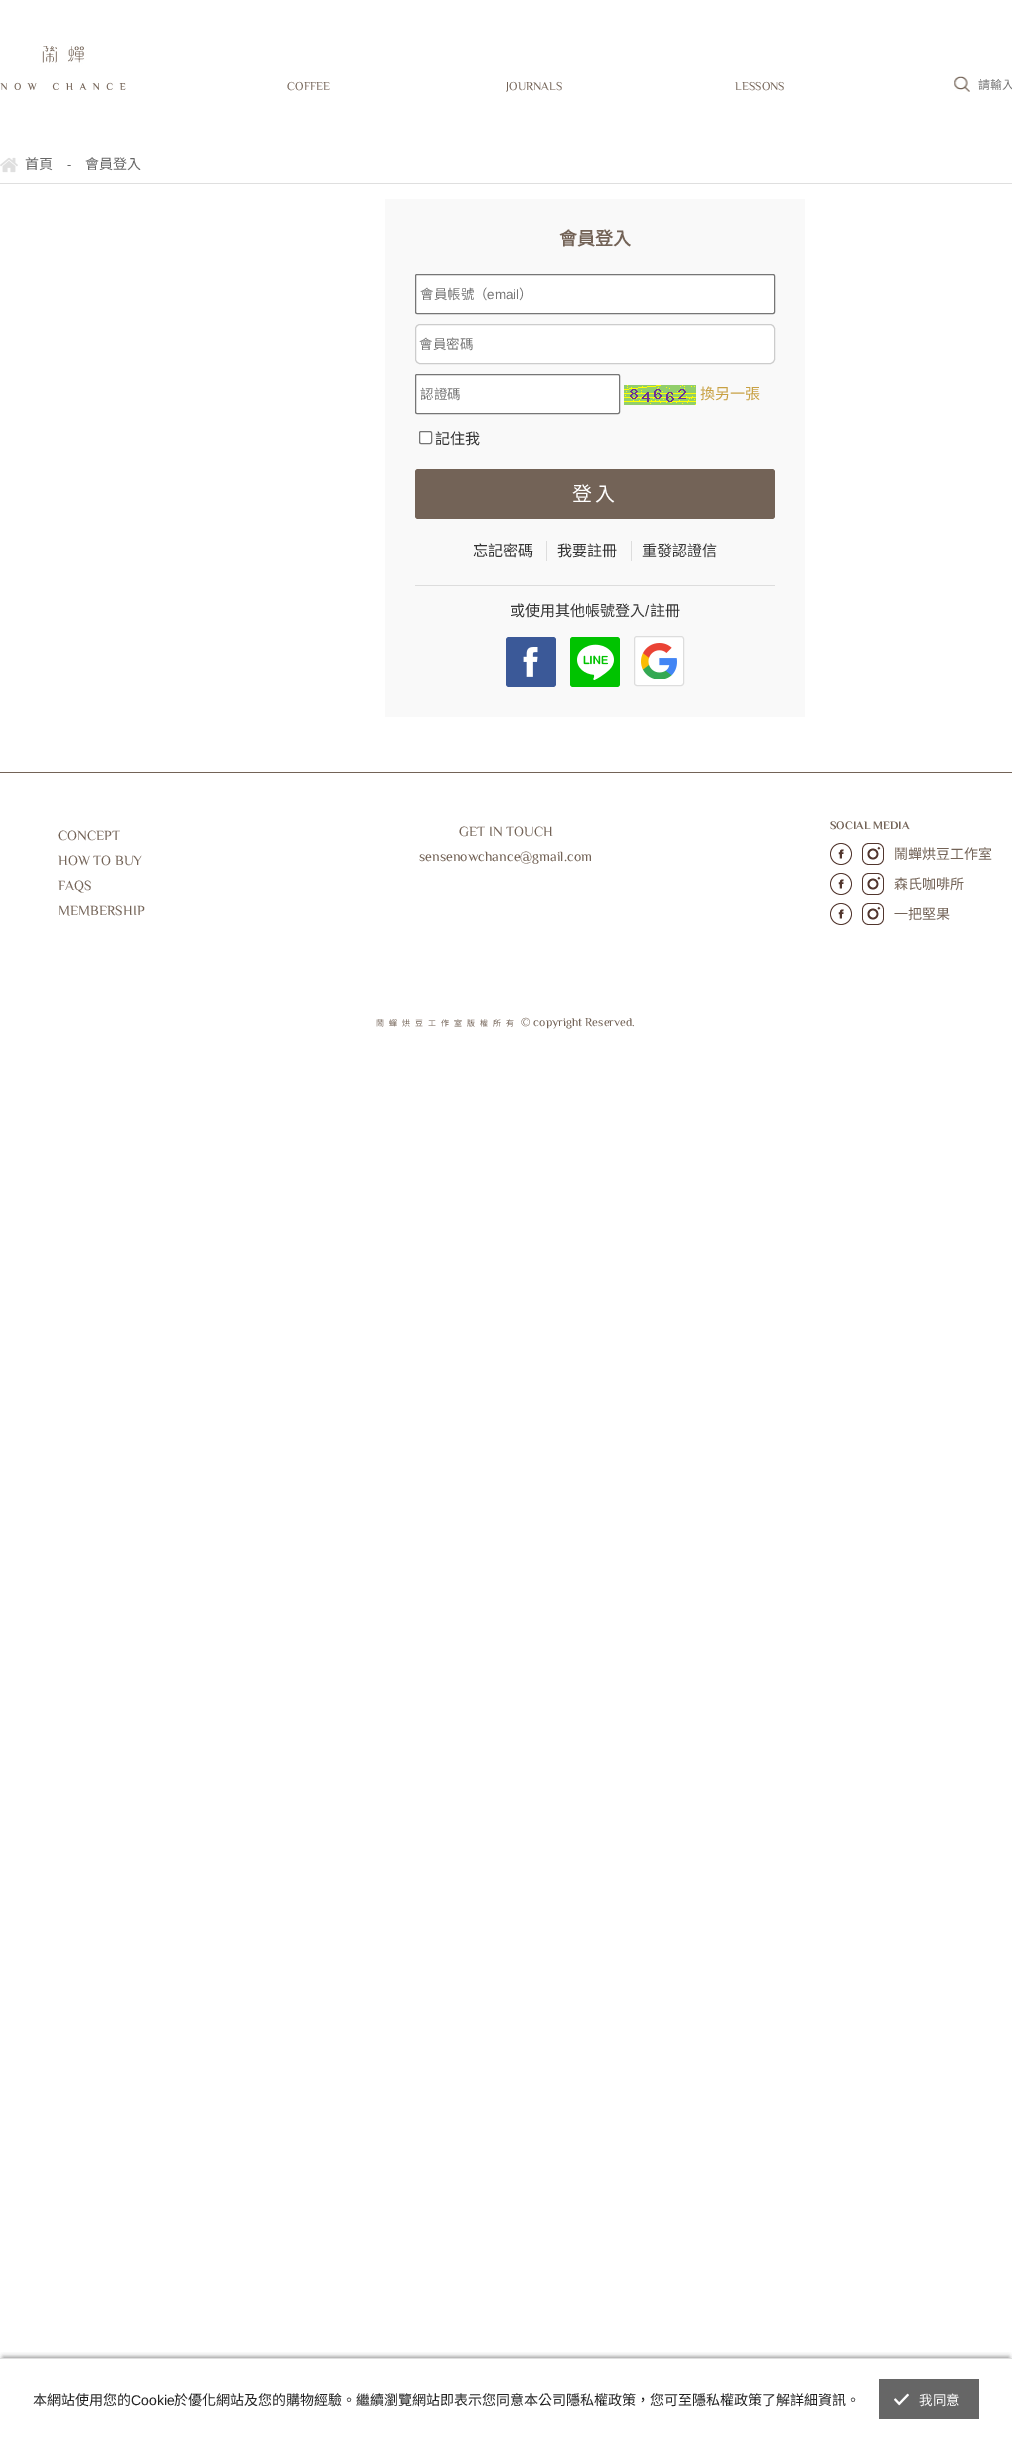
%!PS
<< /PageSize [1012 2439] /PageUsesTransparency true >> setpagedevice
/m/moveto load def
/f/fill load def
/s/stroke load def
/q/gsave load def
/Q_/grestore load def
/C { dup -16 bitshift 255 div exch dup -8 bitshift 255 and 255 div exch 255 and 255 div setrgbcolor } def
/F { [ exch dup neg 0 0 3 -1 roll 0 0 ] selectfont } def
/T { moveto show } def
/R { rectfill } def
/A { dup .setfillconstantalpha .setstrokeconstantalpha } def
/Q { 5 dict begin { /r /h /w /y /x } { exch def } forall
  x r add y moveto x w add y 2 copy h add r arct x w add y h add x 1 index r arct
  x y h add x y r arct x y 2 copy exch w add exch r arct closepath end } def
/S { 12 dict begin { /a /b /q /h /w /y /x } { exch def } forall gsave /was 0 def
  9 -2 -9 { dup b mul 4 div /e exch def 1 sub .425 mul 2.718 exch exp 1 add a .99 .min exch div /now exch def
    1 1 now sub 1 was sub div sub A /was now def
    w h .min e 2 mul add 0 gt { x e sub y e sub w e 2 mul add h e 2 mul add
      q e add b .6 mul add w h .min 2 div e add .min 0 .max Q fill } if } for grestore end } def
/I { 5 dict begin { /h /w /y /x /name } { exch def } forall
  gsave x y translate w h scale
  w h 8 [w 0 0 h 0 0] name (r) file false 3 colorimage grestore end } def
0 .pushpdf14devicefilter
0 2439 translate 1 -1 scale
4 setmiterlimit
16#FFFFFF C
0 0 1012 2439 R
(1.rgb) 0 46 126 44 I
/Philosopher-Regular 12 F
16#736357 C
(COFFEE) 287 90 T
(JOURNALS) 506 90 T
(LESSONS) 735 90 T
(2.rgb) 954 76 16 16 I
/NotoSansCJKTC-Regular 12 F
16#757575 C
(請輸入) 978 89 T
16#DFDFDF C
0 183 1012 1 R
(3.rgb) 0 157 18 16 I
/NotoSansCJKTC-Regular 14 F
16#666666 C
(首頁) 25 169 T
/LiberationSans-Regular 13 F
(-) 67 169 T
/NotoSansCJKTC-Regular 14 F
(會員登入) 85 169 T
16#F9F9F9 C
385 199 420 518 R
/NotoSansCJKTC-Bold 18 F
16#736357 C
(會員登入) 559 245 T
16#FFFFFF C
415.5 274.5 359 39 1.5 Q q f Q_
16#767676 C
s
/NotoSansCJKTC-Regular 13.5 F
16#757575 C
(會員帳號（) 420 299 T
/LiberationSans-Regular 13.5 F
(email) 487 299 T
/NotoSansCJKTC-Regular 13.5 F
(）) 519 299 T
16#FFFFFF C
415.5 324.5 359 39 4.5 Q q f Q_
16#CCCCCC C
s
16#757575 C
(會員密碼) 419 349 T
16#FFFFFF C
415.5 374.5 204 39 1.5 Q q f Q_
16#767676 C
s
16#757575 C
(認證碼) 420 399 T
(4.rgb) 624 385 72 20 I
/NotoSansCJKTC-Regular 15 F
16#C8A143 C
(換另一張) 700 399 T
16#FFFFFF C
419.5 431.5 12 12 1.5 Q q f Q_
16#767676 C
s
16#333333 C
(記住我) 435 444 T
16#736357 C
415 469 360 50 3 Q f
/NotoSansCJKTC-Regular 20 F
16#FFFFFF C
572 501 m 3 0 (登入) ashow
/NotoSansCJKTC-Regular 15 F
16#333333 C
(忘記密碼) 473 556 T
16#DDDDDD C
546 541 1 20 R
16#333333 C
(我要註冊) 557 556 T
16#DDDDDD C
631 541 1 20 R
16#333333 C
(重發認證信) 642 556 T
16#DDDDDD C
415 585 360 1 R
16#333333 C
(或使用其他帳號登入) 510 616 T
/LiberationSans-Regular 15 F
(/) 645 616 T
/NotoSansCJKTC-Regular 15 F
(註冊) 650 616 T
16#3B5998 C
506 637 50 50 3 Q f
(5.rgb) 523 647 15 30 I
16#00C300 C
570 637 50 50 3 Q f
(6.rgb) 577 644 37 36 I
16#FFFFFF C
634 636 50 50 3 Q f
(7.rgb) 641 643 36 36 I
16#DDDDDD C
634.5 636.5 49 49 2.5 Q s
16#736357 C
0 772 1012 1 R
/Philosopher-Regular 14 F
(CONCEPT) 58 840 T
(HOW TO BUY) 58 865 T
(FAQS) 58 890 T
(MEMBERSHIP) 58 915 T
(GET IN TOUCH) 459 836 T
(sensenowchance@gmail.com) 419 861 T
/Philosopher-Bold 11.5 F
(SOCIAL MEDIA) 830 829 T
(8.rgb) 830 843 22 22 I
(9.rgb) 862 843 22 22 I
/NotoSansCJKTC-Regular 14 F
(鬧蟬烘豆工作室) 894 859 T
(8.rgb) 830 873 22 22 I
(9.rgb) 862 873 22 22 I
(森氏咖啡所) 894 889 T
(8.rgb) 830 903 22 22 I
(9.rgb) 862 903 22 22 I
(一把堅果) 894 919 T
/NotoSansCJKTC-Regular 8 F
376 1026 m 5 0 (鬧蟬烘豆工作室版權所有) ashow
/Philosopher-Regular 12 F
(© copyright Reserved.) 521 1026 T
q
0 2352 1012 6 rectclip
16#8A8A8A C
3 2357 1006 75 0 2.5 1 S
Q_
16#DFDFDF C
0 2358 1012 1 R
/NotoSansCJKTC-Regular 14 F
16#222222 C
(本網站使用您的) 33 2405 T
/LiberationSans-Regular 14 F
(Cookie) 131 2405 T
/NotoSansCJKTC-Regular 14 F
(於優化網站及您的購物經驗。繼續瀏覽網站即表示您同意本公司隱私權政策，您可至隱私權政策了解詳細資訊。) 174 2405 T
16#666666 C
879 2379 100 40 R
(10.rgb) 894 2393 15 13 I
/NotoSansCJKTC-Regular 13.5 F
16#FFFFFF C
(我同意) 919 2405 T
.poppdf14devicefilter showpage
